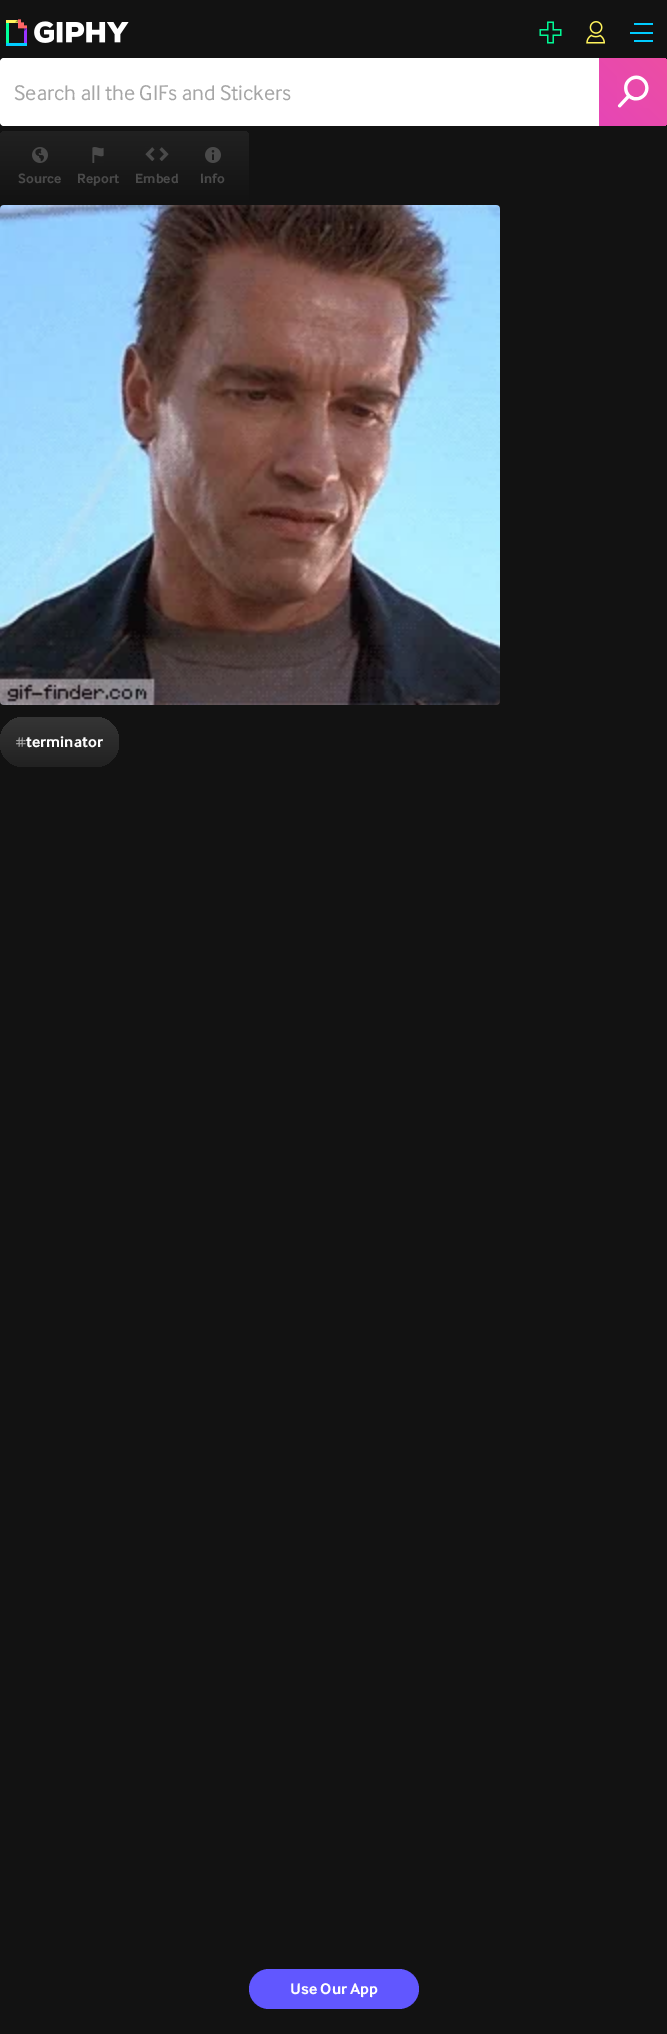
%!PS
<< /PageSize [667 2034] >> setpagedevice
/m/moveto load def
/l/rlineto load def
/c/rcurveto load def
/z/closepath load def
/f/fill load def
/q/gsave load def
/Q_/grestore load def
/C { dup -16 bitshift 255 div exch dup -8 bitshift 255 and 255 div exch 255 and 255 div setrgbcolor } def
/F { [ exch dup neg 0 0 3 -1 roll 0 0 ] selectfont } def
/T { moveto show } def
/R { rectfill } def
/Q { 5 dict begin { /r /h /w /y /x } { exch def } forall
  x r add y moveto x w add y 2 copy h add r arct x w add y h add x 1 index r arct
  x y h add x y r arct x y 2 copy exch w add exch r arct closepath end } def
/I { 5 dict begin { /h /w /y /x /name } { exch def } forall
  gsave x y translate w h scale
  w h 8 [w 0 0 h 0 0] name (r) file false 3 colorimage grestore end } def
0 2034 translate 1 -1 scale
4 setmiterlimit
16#121212 C
0 0 667 2034 R
(1.rgb) 6 19 21 27 I
(2.rgb) 34 21 95 22 I
(3.rgb) 539 21 23 23 I
(4.rgb) 586 21 19 23 I
(5.rgb) 630 23 23 19 I
16#FFFFFF C
0 58 667 68 4 Q f
/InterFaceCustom-Regular 22 F
16#A6A6A6 C
(Search all the GIFs and Stickers) 14 100 T
q 599 58 m 64 0 l 2 0 4 2 4 4 c 0 60 l 0 2 -2 4 -4 4 c -64 0 l z clip newpath
<< /ShadingType 2 /ColorSpace /DeviceRGB /Coords [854 381 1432 -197] /Extend [true true] /Function << /FunctionType 3 /Domain [0 1] /Functions [<< /FunctionType 2 /Domain [0 1] /C0 [.902 .275 .714] /C1 [1 .4 .4] /N 1 >> << /FunctionType 2 /Domain [0 1] /C0 [1 .4 .4] /C1 [.902 .275 .714] /N 1 >>] /Bounds [.5] /Encode [0 1 0 1] >> >> shfill Q_
(6.rgb) 617 75 32 33 I
q 0 131 249 74 6 Q clip newpath
<< /ShadingType 2 /ColorSpace /DeviceRGB /Coords [125 205 125 131] /Extend [true true] /Function << /FunctionType 2 /Domain [0 1] /C0 [.071 .071 .071] /C1 [.129 .129 .129] /N 1 >> >> shfill Q_
(7.rgb) 32 147 16 16 I
/InterFaceCustom-Bold 14 F
16#4A4A4A C
(Source) 18 183 T
(8.rgb) 92 147 12 16 I
(Report) 77 183 T
(9.rgb) 145 147 24 14 I
(Embed) 135 183 T
(10.rgb) 205 147 16 16 I
(Info) 200 183 T
(11.rgb) 0 205 500 500 I
q 0 717 119 50 24 Q clip newpath
<< /ShadingType 2 /ColorSpace /DeviceRGB /Coords [60 717 60 767] /Extend [true true] /Function << /FunctionType 2 /Domain [0 1] /C0 [.208 .208 .208] /C1 [.129 .129 .129] /N 1 >> >> shfill Q_
/InterFaceCustom-Regular 16 F
16#A6A6A6 C
(#) 16 748 T
/InterFaceCustom-Bold 16 F
16#FFFFFF C
(terminator) 26 747 T
16#6157FF C
249 1969 170 40 20 Q f
16#FFFFFF C
(Use Our App) 290 1994 T
showpage
